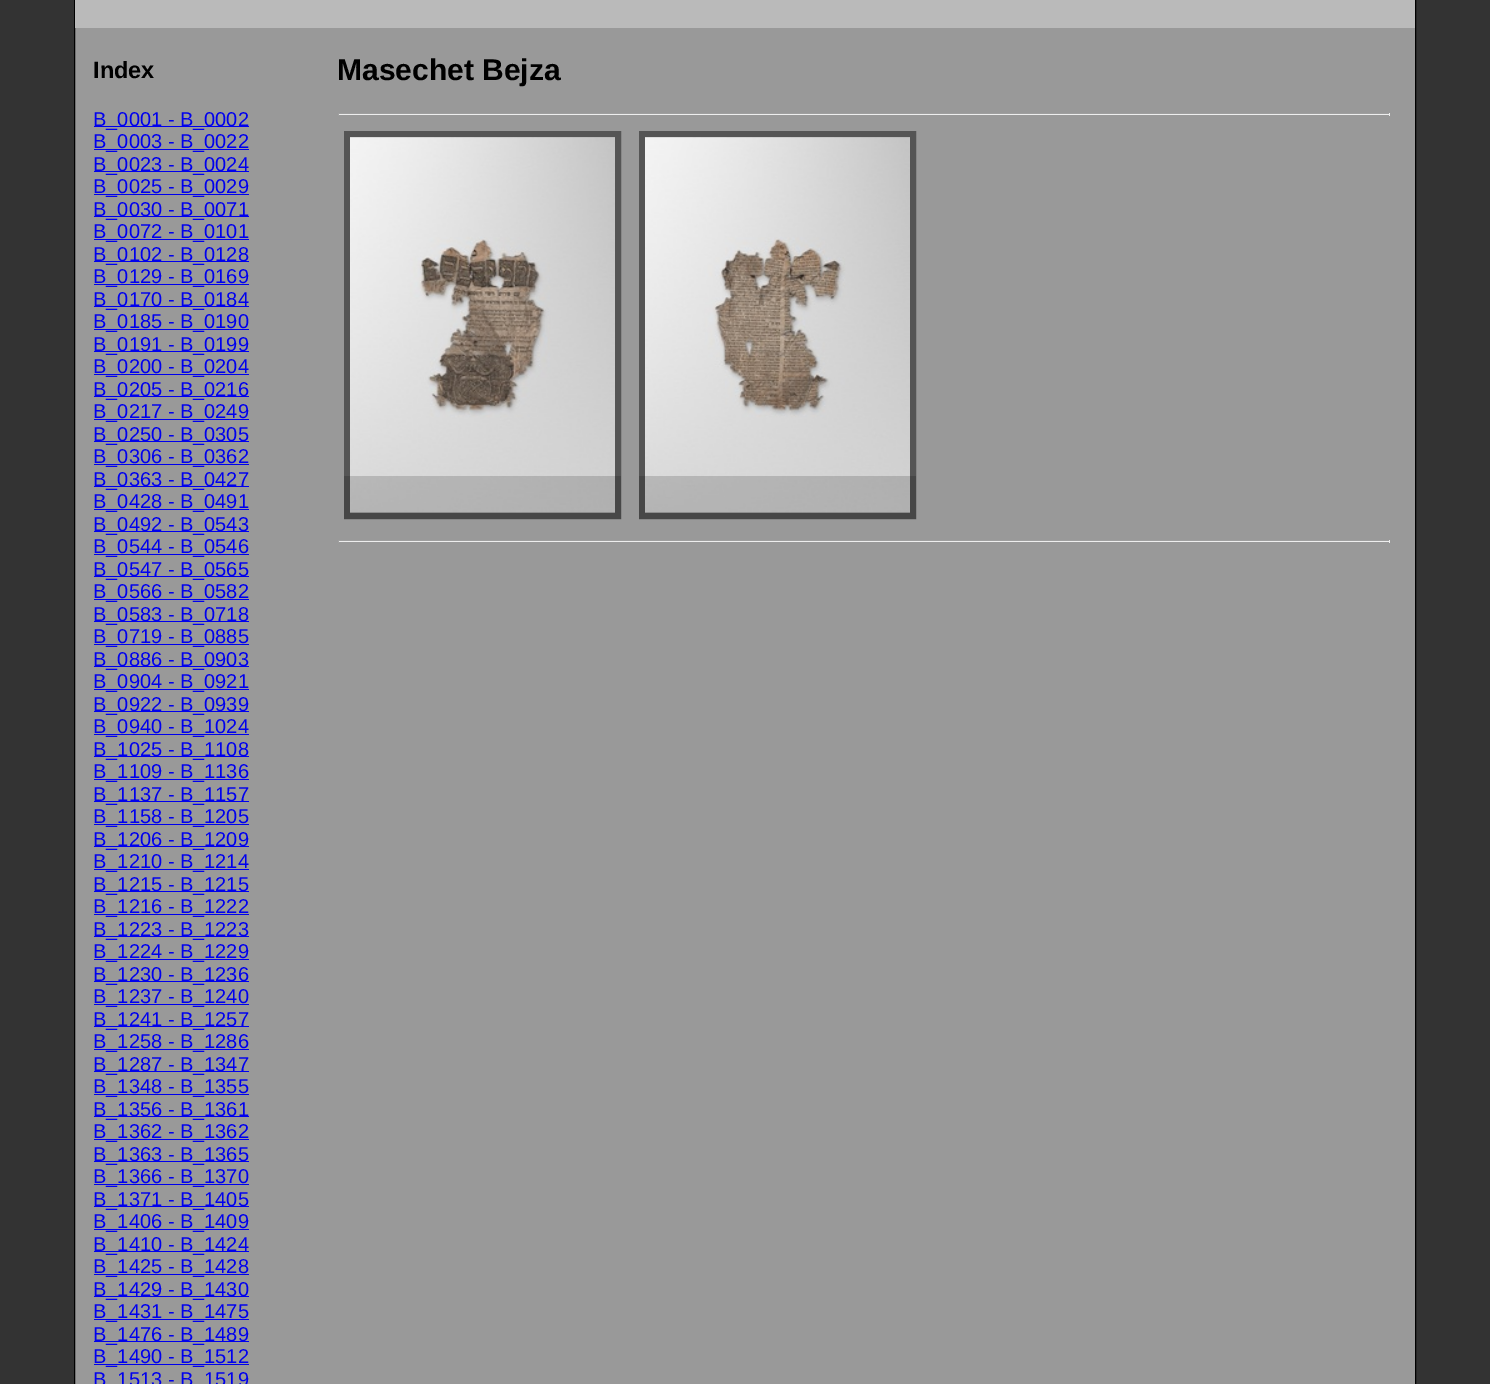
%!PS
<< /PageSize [1490 1384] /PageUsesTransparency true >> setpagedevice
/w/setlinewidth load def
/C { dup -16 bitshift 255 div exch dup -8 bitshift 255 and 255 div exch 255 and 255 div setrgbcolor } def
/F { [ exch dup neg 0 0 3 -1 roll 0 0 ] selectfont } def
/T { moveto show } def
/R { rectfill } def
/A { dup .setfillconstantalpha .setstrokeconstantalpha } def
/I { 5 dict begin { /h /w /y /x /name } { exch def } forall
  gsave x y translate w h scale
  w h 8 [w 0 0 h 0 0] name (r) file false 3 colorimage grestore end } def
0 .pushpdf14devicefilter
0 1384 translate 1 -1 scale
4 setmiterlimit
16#333333 C
0 0 1490 1384 R
16#999999 C
75 28 1340 1356 R
16#000000 C
74.5 -.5 1341 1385 rectstroke
16#BABABA C
75 0 1340 28 R
/LiberationSans-Bold 23.5 F
16#000000 C
(Index) 93 78 T
16#0000EE C
94 126 155 1 R
/LiberationSans-Regular 20 F
(B_0001 - B_0002) 93 126 T
94 149 155 1 R
(B_0003 - B_0022) 93 148 T
94 171 155 1 R
(B_0023 - B_0024) 93 171 T
94 194 155 1 R
(B_0025 - B_0029) 93 193 T
94 216 155 1 R
(B_0030 - B_0071) 93 216 T
94 239 155 1 R
(B_0072 - B_0101) 93 238 T
94 261 155 1 R
(B_0102 - B_0128) 93 261 T
94 284 155 1 R
(B_0129 - B_0169) 93 283 T
94 306 155 1 R
(B_0170 - B_0184) 93 306 T
94 329 155 1 R
(B_0185 - B_0190) 93 328 T
94 351 155 1 R
(B_0191 - B_0199) 93 351 T
94 374 155 1 R
(B_0200 - B_0204) 93 373 T
94 396 155 1 R
(B_0205 - B_0216) 93 396 T
94 419 155 1 R
(B_0217 - B_0249) 93 418 T
94 441 155 1 R
(B_0250 - B_0305) 93 441 T
94 464 155 1 R
(B_0306 - B_0362) 93 463 T
94 486 155 1 R
(B_0363 - B_0427) 93 486 T
94 509 155 1 R
(B_0428 - B_0491) 93 508 T
94 531 155 1 R
(B_0492 - B_0543) 93 531 T
94 554 155 1 R
(B_0544 - B_0546) 93 553 T
94 576 155 1 R
(B_0547 - B_0565) 93 576 T
94 599 155 1 R
(B_0566 - B_0582) 93 598 T
94 621 155 1 R
(B_0583 - B_0718) 93 621 T
94 644 155 1 R
(B_0719 - B_0885) 93 643 T
94 666 155 1 R
(B_0886 - B_0903) 93 666 T
94 689 155 1 R
(B_0904 - B_0921) 93 688 T
94 711 155 1 R
(B_0922 - B_0939) 93 711 T
94 734 155 1 R
(B_0940 - B_1024) 93 733 T
94 756 155 1 R
(B_1025 - B_1108) 93 756 T
94 779 155 1 R
(B_1109 - B_1136) 93 778 T
94 801 155 1 R
(B_1137 - B_1157) 93 801 T
94 824 155 1 R
(B_1158 - B_1205) 93 823 T
94 846 155 1 R
(B_1206 - B_1209) 93 846 T
94 869 155 1 R
(B_1210 - B_1214) 93 868 T
94 891 155 1 R
(B_1215 - B_1215) 93 891 T
94 914 155 1 R
(B_1216 - B_1222) 93 913 T
94 936 155 1 R
(B_1223 - B_1223) 93 936 T
94 959 155 1 R
(B_1224 - B_1229) 93 958 T
94 981 155 1 R
(B_1230 - B_1236) 93 981 T
94 1004 155 1 R
(B_1237 - B_1240) 93 1003 T
94 1026 155 1 R
(B_1241 - B_1257) 93 1026 T
94 1049 155 1 R
(B_1258 - B_1286) 93 1048 T
94 1071 155 1 R
(B_1287 - B_1347) 93 1071 T
94 1094 155 1 R
(B_1348 - B_1355) 93 1093 T
94 1116 155 1 R
(B_1356 - B_1361) 93 1116 T
94 1139 155 1 R
(B_1362 - B_1362) 93 1138 T
94 1161 155 1 R
(B_1363 - B_1365) 93 1161 T
94 1184 155 1 R
(B_1366 - B_1370) 93 1183 T
94 1206 155 1 R
(B_1371 - B_1405) 93 1206 T
94 1229 155 1 R
(B_1406 - B_1409) 93 1228 T
94 1251 155 1 R
(B_1410 - B_1424) 93 1251 T
94 1274 155 1 R
(B_1425 - B_1428) 93 1273 T
94 1296 155 1 R
(B_1429 - B_1430) 93 1296 T
94 1319 155 1 R
(B_1431 - B_1475) 93 1318 T
94 1341 155 1 R
(B_1476 - B_1489) 93 1341 T
94 1364 155 1 R
(B_1490 - B_1512) 93 1363 T
(B_1513 - B_1519) 93 1386 T
/LiberationSans-Bold 30 F
16#000000 C
(Masechet Bejza) 337 80 T
16#9F9F9F C
338 113 1052 1 R
16#EEEEEE C
1389 113 1 3 R
338 114 1052 1 R
16#9F9F9F C
338 113 1 3 R
16#555555 C
6 w
347 134 271 382 rectstroke
(1.rgb) 350 137 265 376 I
0.16 A
16#000000 C
344 476 277 43 R
1 A
16#555555 C
642 134 271 382 rectstroke
(2.rgb) 645 137 265 376 I
0.16 A
16#000000 C
639 476 277 43 R
1 A
16#9F9F9F C
338 540 1052 1 R
16#EEEEEE C
1389 540 1 3 R
338 541 1052 1 R
16#9F9F9F C
338 540 1 3 R
.poppdf14devicefilter showpage
